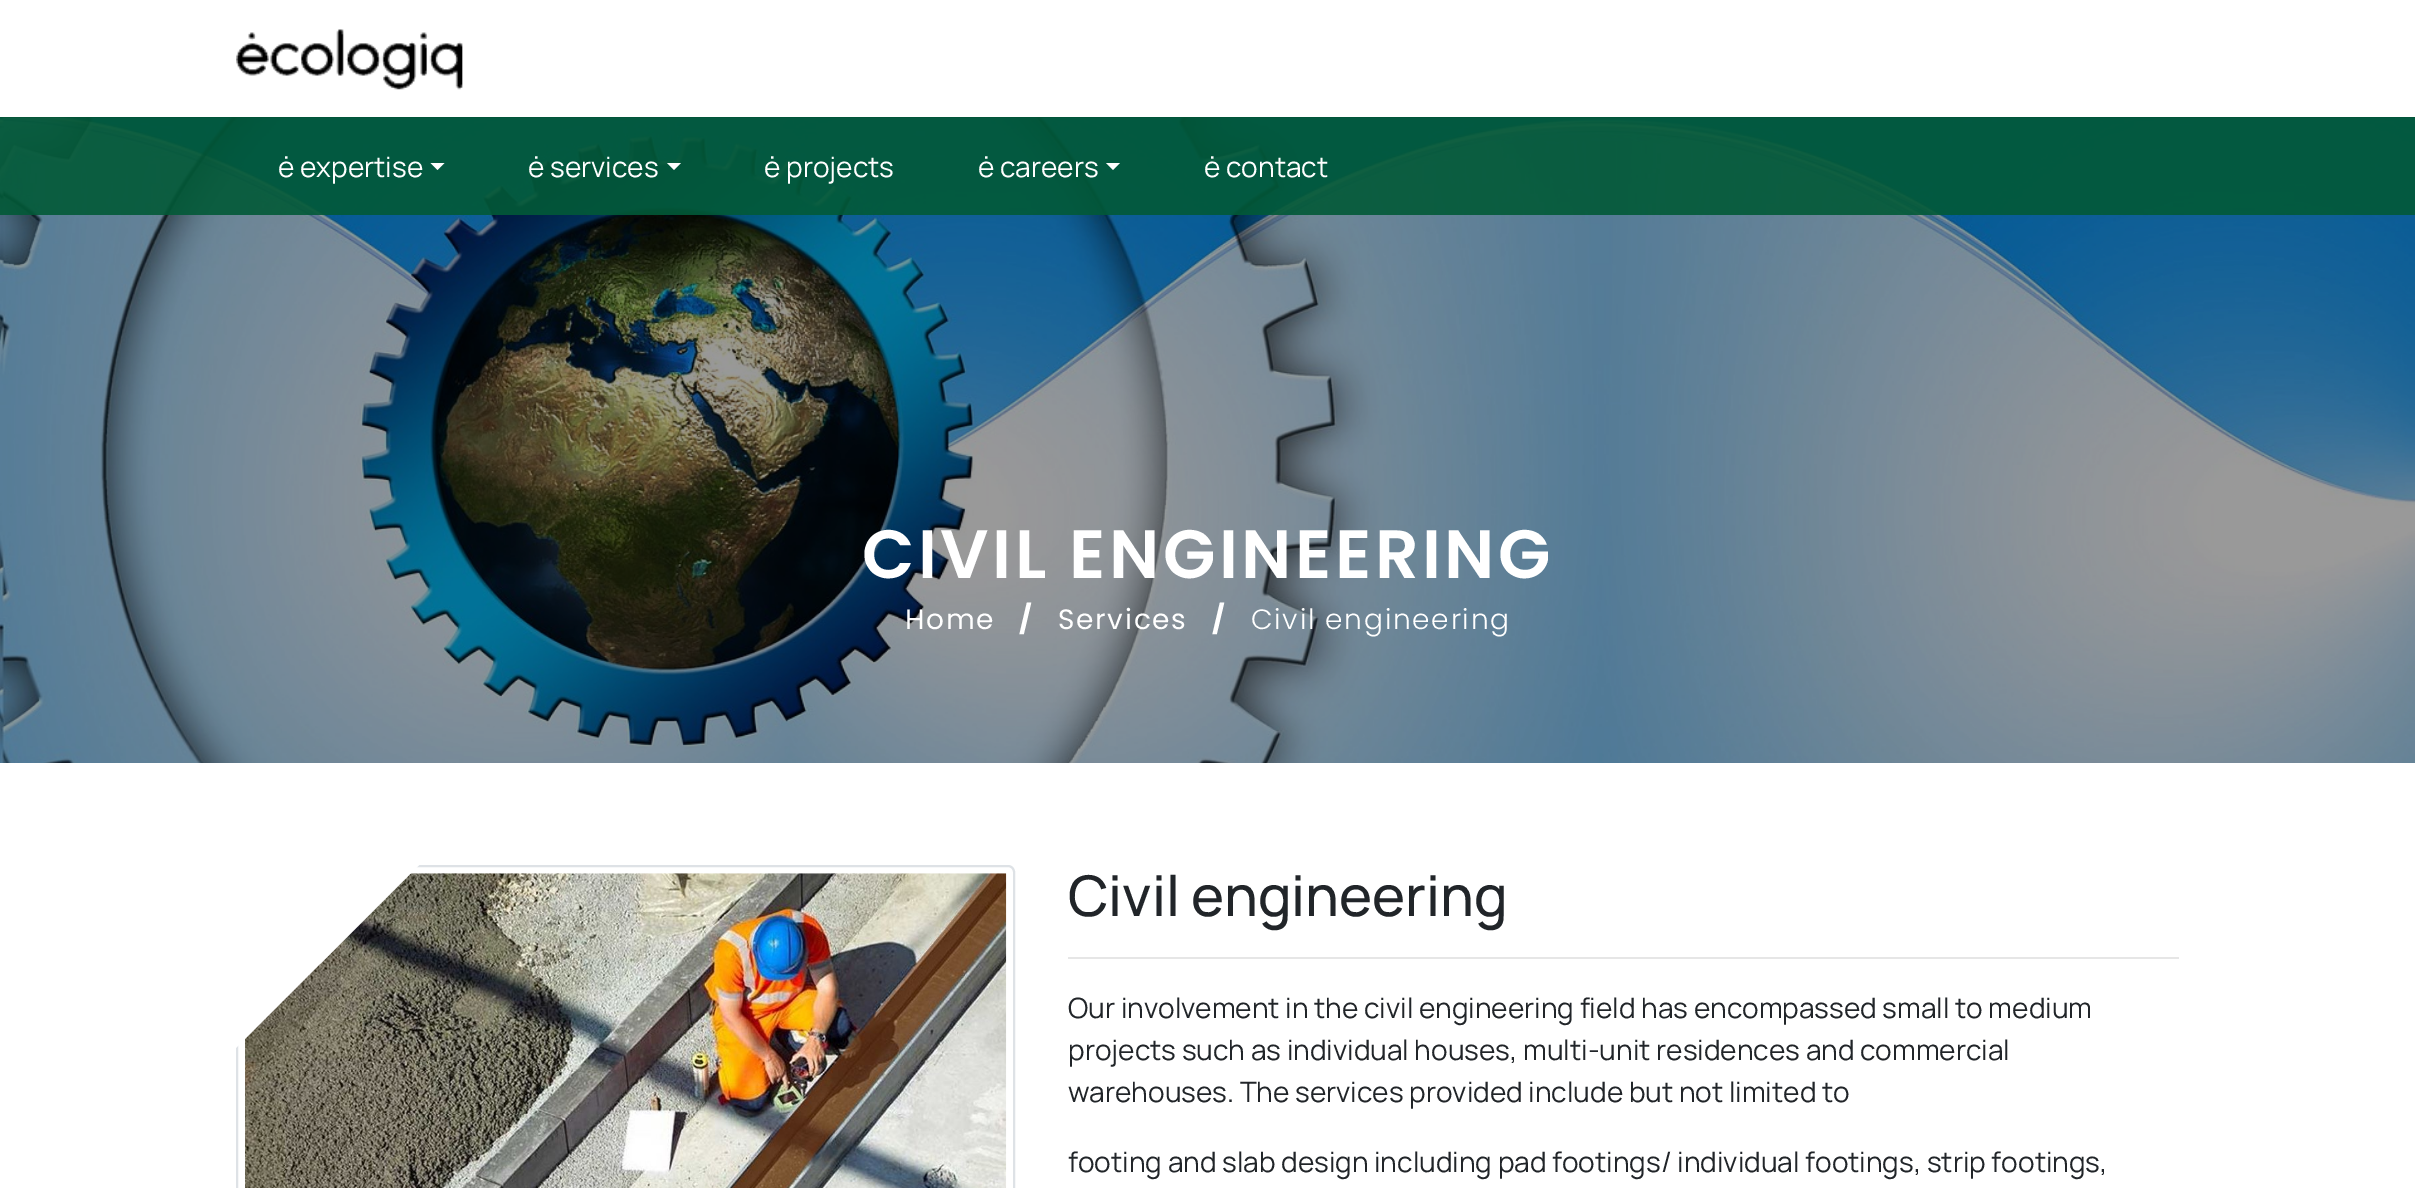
%!PS
<< /PageSize [2415 1188] /PageUsesTransparency true >> setpagedevice
/m/moveto load def
/l/rlineto load def
/z/closepath load def
/f/fill load def
/s/stroke load def
/q/gsave load def
/Q_/grestore load def
/w/setlinewidth load def
/C { dup -16 bitshift 255 div exch dup -8 bitshift 255 and 255 div exch 255 and 255 div setrgbcolor } def
/F { [ exch dup neg 0 0 3 -1 roll 0 0 ] selectfont } def
/T { moveto show } def
/R { rectfill } def
/A { dup .setfillconstantalpha .setstrokeconstantalpha } def
/Q { 5 dict begin { /r /h /w /y /x } { exch def } forall
  x r add y moveto x w add y 2 copy h add r arct x w add y h add x 1 index r arct
  x y h add x y r arct x y 2 copy exch w add exch r arct closepath end } def
/I { 5 dict begin { /h /w /y /x /name } { exch def } forall
  gsave x y translate w h scale
  w h 8 [w 0 0 h 0 0] name (r) file false 3 colorimage grestore end } def
0 .pushpdf14devicefilter
0 1188 translate 1 -1 scale
4 setmiterlimit
16#FFFFFF C
0 0 2415 1188 R
(1.rgb) 236 29 227 61 I
16#000000 C
0 117 2415 646 R
(2.rgb) 0 117 2415 646 I
0.9 A
16#025937 C
0 117 2415 98 R
/Manrope-Regular 28 F
1 A
16#FFFFFF C
(ė expertise) 278 177 T
430.5 163 m 14 0 l -7 7 l z f
(ė services) 528 177 T
667 163 m 14 0 l -7 7 l z f
(ė projects) 764 177 T
(ė careers) 978 177 T
1106 163 m 14 0 l -7 7 l z f
(ė contact) 1204 177 T
/Poppins-SemiBold 68.25 F
862 578 m 3.5 0 (CIVIL ENGINEERING) ashow
/Poppins-Regular 28 F
905 629 m 1.75 0 (Home) ashow
/Poppins-Bold 28 F
1019 629 m 1.75 0 (/) ashow
/Poppins-Regular 28 F
1058 629 m 1.75 0 (Services) ashow
/Poppins-Bold 28 F
1212 629 m 1.75 0 (/) ashow
/Poppins-Light 28 F
1251 629 m 1.75 0 (Civil engineering) ashow
16#DEE2E6 C
2 w
237 866 777 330 6 Q s
(3.rgb) 245 873 762 315 I
q
236 865 779 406 rectclip
16#FFFFFF C
222 666 m 198 198 l -198 198 l -198 -198 l z f
Q_
/Manrope-Medium 56 F
16#212529 C
(Civil engineering) 1068 916 T
16#E6E6E6 C
1068 957 1111 2 R
/Manrope-Regular 28 F
16#212529 C
(Our involvement in the civil engineering field has encompassed small to medium) 1068 1018 T
(projects such as individual houses, multi-unit residences and commercial) 1068 1060 T
(warehouses. The services provided include but not limited to) 1068 1102 T
(footing and slab design including pad footings/ individual footings, strip footings,) 1068 1172 T
.poppdf14devicefilter showpage
